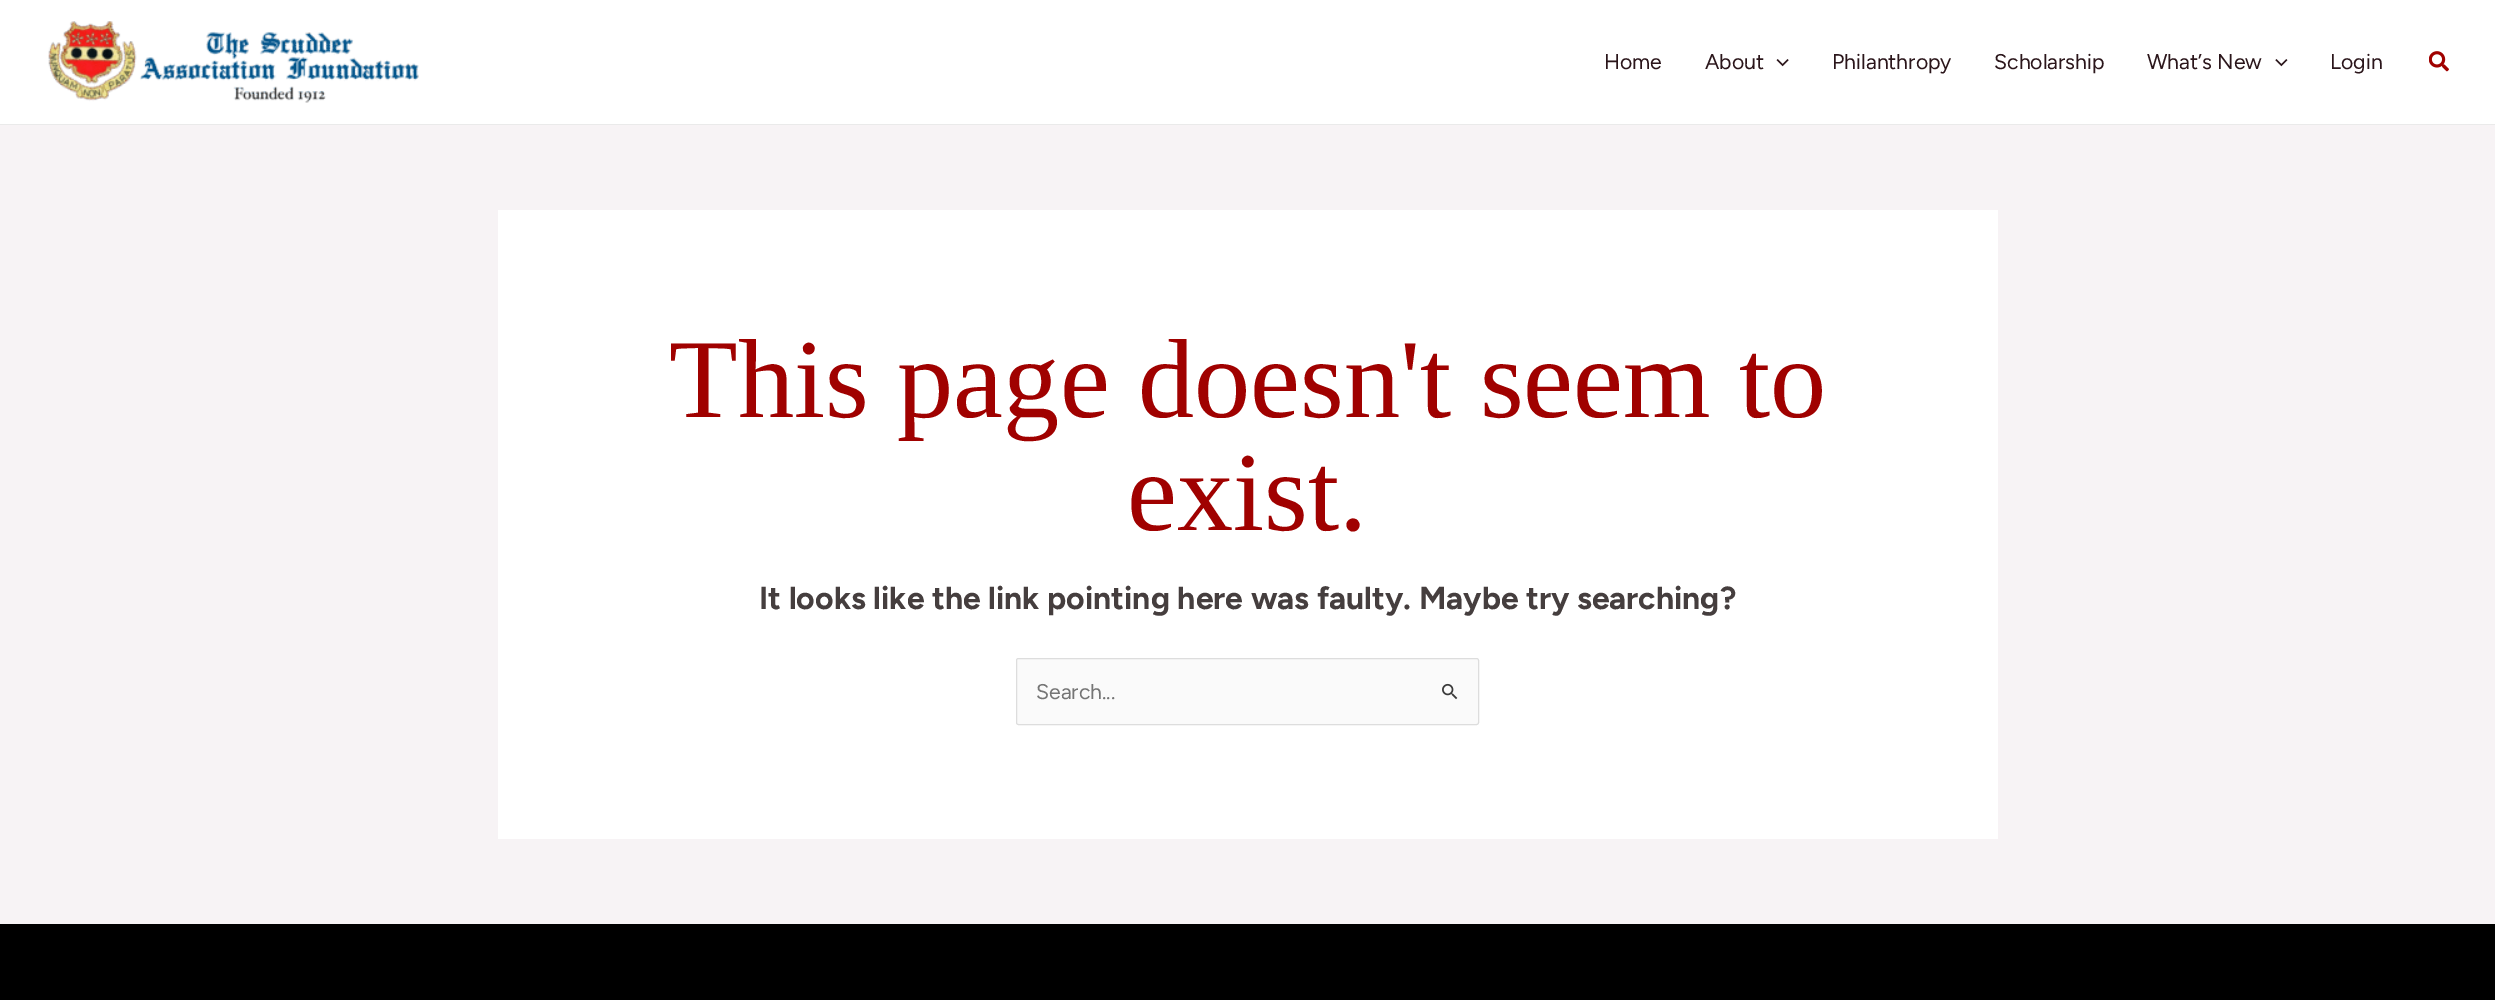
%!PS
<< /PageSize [2495 1000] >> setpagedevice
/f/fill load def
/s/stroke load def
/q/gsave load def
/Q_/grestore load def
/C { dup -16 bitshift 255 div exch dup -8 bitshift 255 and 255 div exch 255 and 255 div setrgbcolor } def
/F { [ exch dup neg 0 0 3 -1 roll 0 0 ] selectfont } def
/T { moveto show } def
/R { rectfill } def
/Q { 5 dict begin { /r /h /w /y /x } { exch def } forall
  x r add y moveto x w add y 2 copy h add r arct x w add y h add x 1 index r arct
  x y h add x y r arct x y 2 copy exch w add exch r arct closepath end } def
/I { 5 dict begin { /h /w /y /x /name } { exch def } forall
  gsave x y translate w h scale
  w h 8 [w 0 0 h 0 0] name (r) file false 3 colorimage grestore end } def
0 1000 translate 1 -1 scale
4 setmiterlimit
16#F7F3F5 C
0 0 2495 1000 R
16#FFFFFF C
0 0 2495 124 R
16#EAEAEA C
0 124 2495 1 R
(1.rgb) 48 21 371 82 I
/Figtree-Regular 21.25 F
16#2B161B C
(Home) 1604 69 T
(About) 1705 69 T
(2.rgb) 1776 59 13 8 I
(Philanthropy) 1832 69 T
(Scholarship) 1994 69 T
(What’s New) 2147 69 T
(3.rgb) 2275 59 13 8 I
(Login) 2330 69 T
(4.rgb) 2429 51 20 21 I
16#FFFFFF C
498 210 1500 629 R
/LiberationSerif-Regular 112.5 F
16#A00100 C
(This page doesn't seem to) 669 417 T
(exist.) 1127 530 T
/Figtree-Bold 31.9 F
16#453E3E C
(It looks like the link pointing here was faulty. Maybe try searching?) 759 609 T
16#FAFAFA C
1016.5 658.5 462 66 2 Q q f Q_
16#DDDDDD C
s
/Figtree-Regular 21.25 F
16#757575 C
(Search...) 1036 699 T
(5.rgb) 1442 683 16 17 I
16#000000 C
0 924 2495 76 R
showpage
